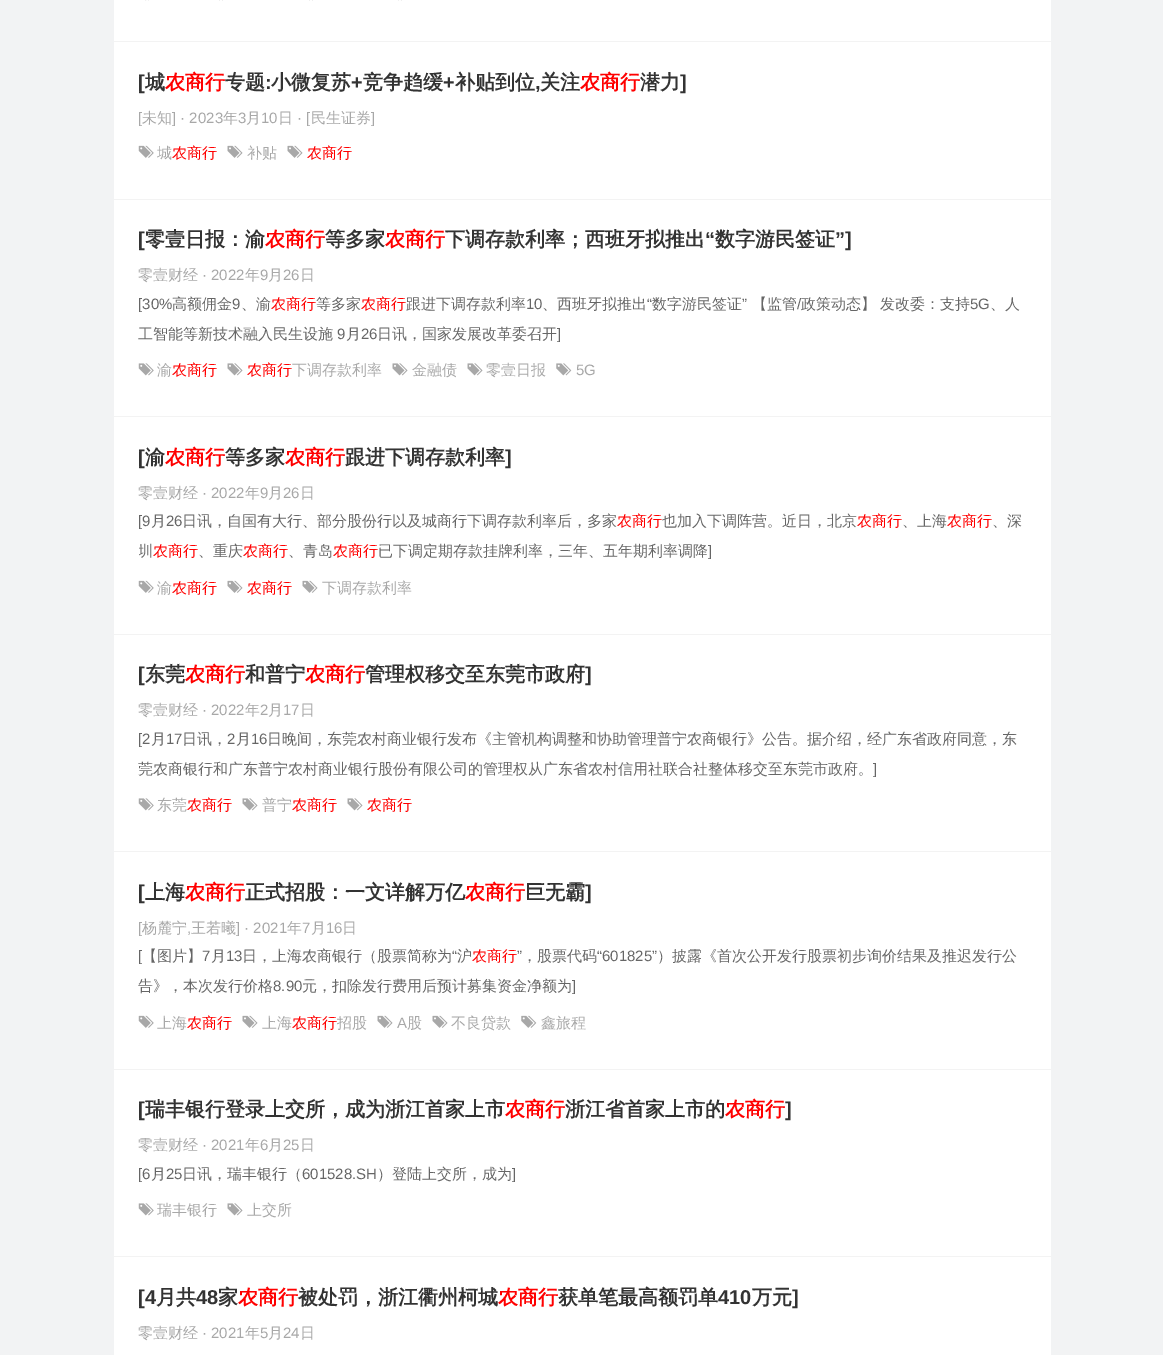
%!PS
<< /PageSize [1163 1355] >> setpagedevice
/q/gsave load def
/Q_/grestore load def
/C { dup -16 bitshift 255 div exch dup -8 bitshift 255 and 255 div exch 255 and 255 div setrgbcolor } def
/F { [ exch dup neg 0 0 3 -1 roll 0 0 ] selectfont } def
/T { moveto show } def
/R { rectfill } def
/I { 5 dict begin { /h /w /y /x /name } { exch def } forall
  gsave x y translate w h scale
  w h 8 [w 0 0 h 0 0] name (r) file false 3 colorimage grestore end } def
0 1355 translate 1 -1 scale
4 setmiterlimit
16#F2F3F4 C
0 0 1163 1355 R
16#FFFFFF C
114 0 937 1355 R
16#F3F3F3 C
114 41 937 1 R
(1.rgb) 145 0 4 1 I
(2.rgb) 219 0 4 1 I
(2.rgb) 309 0 4 1 I
(3.rgb) 398 0 4 1 I
114 199 937 1 R
/LiberationSans-Bold 20 F
16#333333 C
([) 138 89 T
/WenQuanYiZenHei-Bold 20 F
(城) 145 89 T
16#FF0000 C
(农商行) 165 89 T
16#333333 C
(专题) 225 89 T
/LiberationSans-Bold 20 F
(:) 265 89 T
/WenQuanYiZenHei-Bold 20 F
(小微复苏) 271 89 T
/LiberationSans-Bold 20 F
(+) 351 89 T
/WenQuanYiZenHei-Bold 20 F
(竞争趋缓) 363 89 T
/LiberationSans-Bold 20 F
(+) 443 89 T
/WenQuanYiZenHei-Bold 20 F
(补贴到位) 455 89 T
/LiberationSans-Bold 20 F
(,) 535 89 T
/WenQuanYiZenHei-Bold 20 F
(关注) 540 89 T
16#FF0000 C
(农商行) 580 89 T
16#333333 C
(潜力) 640 89 T
/LiberationSans-Bold 20 F
(]) 680 89 T
/LiberationSans-Regular 15 F
16#A8A8A8 C
([) 138 123 T
/WenQuanYiZenHei-Medium 15 F
(未知) 142 123 T
/LiberationSans-Regular 15 F
(] · 2023) 172 123 T
/WenQuanYiZenHei-Medium 15 F
(年) 223 123 T
/LiberationSans-Regular 15 F
(3) 238 123 T
/WenQuanYiZenHei-Medium 15 F
(月) 246 123 T
/LiberationSans-Regular 15 F
(10) 261 123 T
/WenQuanYiZenHei-Medium 15 F
(日) 278 123 T
/LiberationSans-Regular 15 F
(· [) 297 123 T
/WenQuanYiZenHei-Medium 15 F
(民生证券) 311 123 T
/LiberationSans-Regular 15 F
(]) 371 123 T
(4.rgb) 138 145 16 13 I
/WenQuanYiZenHei-Medium 15 F
(城) 157 158 T
16#FF0000 C
(农商行) 172 158 T
(5.rgb) 227 145 16 13 I
16#A8A8A8 C
(补贴) 247 158 T
(5.rgb) 287 145 16 13 I
16#FF0000 C
(农商行) 307 158 T
16#F3F3F3 C
114 416 937 1 R
/LiberationSans-Bold 20 F
16#333333 C
([) 138 246 T
/WenQuanYiZenHei-Bold 20 F
(零壹日报：渝) 145 246 T
16#FF0000 C
(农商行) 265 246 T
16#333333 C
(等多家) 325 246 T
16#FF0000 C
(农商行) 385 246 T
16#333333 C
(下调存款利率；西班牙拟推出) 445 246 T
/LiberationSans-Bold 20 F
(“) 705 246 T
/WenQuanYiZenHei-Bold 20 F
(数字游民签证) 715 246 T
/LiberationSans-Bold 20 F
(”]) 835 246 T
/WenQuanYiZenHei-Medium 15 F
16#A8A8A8 C
(零壹财经) 138 280 T
/LiberationSans-Regular 15 F
(· 2022) 202 280 T
/WenQuanYiZenHei-Medium 15 F
(年) 245 280 T
/LiberationSans-Regular 15 F
(9) 260 280 T
/WenQuanYiZenHei-Medium 15 F
(月) 268 280 T
/LiberationSans-Regular 15 F
(26) 283 280 T
/WenQuanYiZenHei-Medium 15 F
(日) 300 280 T
/LiberationSans-Regular 15 F
16#666666 C
([30%) 138 309 T
/WenQuanYiZenHei-Medium 15 F
(高额佣金) 172 309 T
/LiberationSans-Regular 15 F
(9) 232 309 T
/WenQuanYiZenHei-Medium 15 F
(、渝) 241 309 T
16#FF0000 C
(农商行) 271 309 T
16#666666 C
(等多家) 316 309 T
16#FF0000 C
(农商行) 361 309 T
16#666666 C
(跟进下调存款利率) 406 309 T
/LiberationSans-Regular 15 F
(10) 526 309 T
/WenQuanYiZenHei-Medium 15 F
(、西班牙拟推出) 542 309 T
/LiberationSans-Regular 15 F
(“) 647 309 T
/WenQuanYiZenHei-Medium 15 F
(数字游民签证) 652 309 T
/LiberationSans-Regular 15 F
(”) 742 309 T
/WenQuanYiZenHei-Medium 15 F
(【监管) 752 309 T
/LiberationSans-Regular 15 F
(/) 797 309 T
/WenQuanYiZenHei-Medium 15 F
(政策动态】) 801 309 T
(发改委：支持) 880 309 T
/LiberationSans-Regular 15 F
(5G) 970 309 T
/WenQuanYiZenHei-Medium 15 F
(、人) 990 309 T
(工智能等新技术融入民生设施) 138 339 T
/LiberationSans-Regular 15 F
(9) 337 339 T
/WenQuanYiZenHei-Medium 15 F
(月) 346 339 T
/LiberationSans-Regular 15 F
(26) 361 339 T
/WenQuanYiZenHei-Medium 15 F
(日讯，国家发展改革委召开) 377 339 T
/LiberationSans-Regular 15 F
(]) 557 339 T
(6.rgb) 138 363 16 13 I
/WenQuanYiZenHei-Medium 15 F
16#A8A8A8 C
(渝) 157 375 T
16#FF0000 C
(农商行) 172 375 T
(7.rgb) 227 363 16 13 I
(农商行) 247 375 T
16#A8A8A8 C
(下调存款利率) 292 375 T
(7.rgb) 392 363 16 13 I
(金融债) 412 375 T
(7.rgb) 467 363 16 13 I
(零壹日报) 486 375 T
(8.rgb) 556 363 16 13 I
/LiberationSans-Regular 15 F
(5G) 576 375 T
16#F3F3F3 C
114 634 937 1 R
/LiberationSans-Bold 20 F
16#333333 C
([) 138 464 T
/WenQuanYiZenHei-Bold 20 F
(渝) 145 464 T
16#FF0000 C
(农商行) 165 464 T
16#333333 C
(等多家) 225 464 T
16#FF0000 C
(农商行) 285 464 T
16#333333 C
(跟进下调存款利率) 345 464 T
/LiberationSans-Bold 20 F
(]) 505 464 T
/WenQuanYiZenHei-Medium 15 F
16#A8A8A8 C
(零壹财经) 138 498 T
/LiberationSans-Regular 15 F
(· 2022) 202 498 T
/WenQuanYiZenHei-Medium 15 F
(年) 245 498 T
/LiberationSans-Regular 15 F
(9) 260 498 T
/WenQuanYiZenHei-Medium 15 F
(月) 268 498 T
/LiberationSans-Regular 15 F
(26) 283 498 T
/WenQuanYiZenHei-Medium 15 F
(日) 300 498 T
/LiberationSans-Regular 15 F
16#666666 C
([9) 138 526 T
/WenQuanYiZenHei-Medium 15 F
(月) 151 526 T
/LiberationSans-Regular 15 F
(26) 166 526 T
/WenQuanYiZenHei-Medium 15 F
(日讯，自国有大行、部分股份行以及城商行下调存款利率后，多家) 182 526 T
16#FF0000 C
(农商行) 617 526 T
16#666666 C
(也加入下调阵营。近日，北京) 662 526 T
16#FF0000 C
(农商行) 857 526 T
16#666666 C
(、上海) 902 526 T
16#FF0000 C
(农商行) 947 526 T
16#666666 C
(、深) 992 526 T
q
139 506 887 60 rectclip
(圳) 138 556 T
Q_
16#FF0000 C
(农商行) 153 556 T
16#666666 C
(、重庆) 198 556 T
16#FF0000 C
(农商行) 243 556 T
16#666666 C
(、青岛) 288 556 T
16#FF0000 C
(农商行) 333 556 T
16#666666 C
(已下调定期存款挂牌利率，三年、五年期利率调降) 378 556 T
/LiberationSans-Regular 15 F
(]) 708 556 T
(4.rgb) 138 580 16 13 I
/WenQuanYiZenHei-Medium 15 F
16#A8A8A8 C
(渝) 157 593 T
16#FF0000 C
(农商行) 172 593 T
(5.rgb) 227 580 16 13 I
(农商行) 247 593 T
(5.rgb) 302 580 16 13 I
16#A8A8A8 C
(下调存款利率) 322 593 T
16#F3F3F3 C
114 851 937 1 R
/LiberationSans-Bold 20 F
16#333333 C
([) 138 681 T
/WenQuanYiZenHei-Bold 20 F
(东莞) 145 681 T
16#FF0000 C
(农商行) 185 681 T
16#333333 C
(和普宁) 245 681 T
16#FF0000 C
(农商行) 305 681 T
16#333333 C
(管理权移交至东莞市政府) 365 681 T
/LiberationSans-Bold 20 F
(]) 585 681 T
/WenQuanYiZenHei-Medium 15 F
16#A8A8A8 C
(零壹财经) 138 715 T
/LiberationSans-Regular 15 F
(· 2022) 202 715 T
/WenQuanYiZenHei-Medium 15 F
(年) 245 715 T
/LiberationSans-Regular 15 F
(2) 260 715 T
/WenQuanYiZenHei-Medium 15 F
(月) 268 715 T
/LiberationSans-Regular 15 F
(17) 283 715 T
/WenQuanYiZenHei-Medium 15 F
(日) 300 715 T
/LiberationSans-Regular 15 F
16#666666 C
([2) 138 744 T
/WenQuanYiZenHei-Medium 15 F
(月) 151 744 T
/LiberationSans-Regular 15 F
(17) 166 744 T
/WenQuanYiZenHei-Medium 15 F
(日讯，) 182 744 T
/LiberationSans-Regular 15 F
(2) 227 744 T
/WenQuanYiZenHei-Medium 15 F
(月) 236 744 T
/LiberationSans-Regular 15 F
(16) 251 744 T
/WenQuanYiZenHei-Medium 15 F
(日晚间，东莞农村商业银行发布《主管机构调整和协助管理普宁农商银行》公告。据介绍，经广东省政府同意，东) 267 744 T
(莞农商银行和广东普宁农村商业银行股份有限公司的管理权从广东省农村信用社联合社整体移交至东莞市政府。) 138 774 T
/LiberationSans-Regular 15 F
(]) 873 774 T
(6.rgb) 138 798 16 13 I
/WenQuanYiZenHei-Medium 15 F
16#A8A8A8 C
(东莞) 157 810 T
16#FF0000 C
(农商行) 187 810 T
(7.rgb) 242 798 16 13 I
16#A8A8A8 C
(普宁) 262 810 T
16#FF0000 C
(农商行) 292 810 T
(7.rgb) 347 798 16 13 I
(农商行) 367 810 T
16#F3F3F3 C
114 1069 937 1 R
/LiberationSans-Bold 20 F
16#333333 C
([) 138 899 T
/WenQuanYiZenHei-Bold 20 F
(上海) 145 899 T
16#FF0000 C
(农商行) 185 899 T
16#333333 C
(正式招股：一文详解万亿) 245 899 T
16#FF0000 C
(农商行) 465 899 T
16#333333 C
(巨无霸) 525 899 T
/LiberationSans-Bold 20 F
(]) 585 899 T
/LiberationSans-Regular 15 F
16#A8A8A8 C
([) 138 933 T
/WenQuanYiZenHei-Medium 15 F
(杨麓宁) 142 933 T
/LiberationSans-Regular 15 F
(,) 187 933 T
/WenQuanYiZenHei-Medium 15 F
(王若曦) 191 933 T
/LiberationSans-Regular 15 F
(] · 2021) 236 933 T
/WenQuanYiZenHei-Medium 15 F
(年) 287 933 T
/LiberationSans-Regular 15 F
(7) 302 933 T
/WenQuanYiZenHei-Medium 15 F
(月) 311 933 T
/LiberationSans-Regular 15 F
(16) 326 933 T
/WenQuanYiZenHei-Medium 15 F
(日) 342 933 T
/LiberationSans-Regular 15 F
16#666666 C
([) 138 961 T
/WenQuanYiZenHei-Medium 15 F
(【图片】) 142 961 T
/LiberationSans-Regular 15 F
(7) 202 961 T
/WenQuanYiZenHei-Medium 15 F
(月) 211 961 T
/LiberationSans-Regular 15 F
(13) 226 961 T
/WenQuanYiZenHei-Medium 15 F
(日，上海农商银行（股票简称为) 242 961 T
/LiberationSans-Regular 15 F
(“) 452 961 T
/WenQuanYiZenHei-Medium 15 F
(沪) 457 961 T
16#FF0000 C
(农商行) 472 961 T
/LiberationSans-Regular 15 F
16#666666 C
(”) 517 961 T
/WenQuanYiZenHei-Medium 15 F
(，股票代码) 522 961 T
/LiberationSans-Regular 15 F
(“601825”) 597 961 T
/WenQuanYiZenHei-Medium 15 F
(）披露《首次公开发行股票初步询价结果及推迟发行公) 657 961 T
(告》，本次发行价格) 138 991 T
/LiberationSans-Regular 15 F
(8.90) 273 991 T
/WenQuanYiZenHei-Medium 15 F
(元，扣除发行费用后预计募集资金净额为) 302 991 T
/LiberationSans-Regular 15 F
(]) 572 991 T
(4.rgb) 138 1015 16 13 I
/WenQuanYiZenHei-Medium 15 F
16#A8A8A8 C
(上海) 157 1028 T
16#FF0000 C
(农商行) 187 1028 T
(5.rgb) 242 1015 16 13 I
16#A8A8A8 C
(上海) 262 1028 T
16#FF0000 C
(农商行) 292 1028 T
16#A8A8A8 C
(招股) 337 1028 T
(5.rgb) 377 1015 16 13 I
/LiberationSans-Regular 15 F
(A) 397 1028 T
/WenQuanYiZenHei-Medium 15 F
(股) 407 1028 T
(5.rgb) 432 1015 16 13 I
(不良贷款) 451 1028 T
(9.rgb) 521 1015 16 13 I
(鑫旅程) 541 1028 T
16#F3F3F3 C
114 1256 937 1 R
/LiberationSans-Bold 20 F
16#333333 C
([) 138 1116 T
/WenQuanYiZenHei-Bold 20 F
(瑞丰银行登录上交所，成为浙江首家上市) 145 1116 T
16#FF0000 C
(农商行) 505 1116 T
16#333333 C
(浙江省首家上市的) 565 1116 T
16#FF0000 C
(农商行) 725 1116 T
/LiberationSans-Bold 20 F
16#333333 C
(]) 785 1116 T
/WenQuanYiZenHei-Medium 15 F
16#A8A8A8 C
(零壹财经) 138 1150 T
/LiberationSans-Regular 15 F
(· 2021) 202 1150 T
/WenQuanYiZenHei-Medium 15 F
(年) 245 1150 T
/LiberationSans-Regular 15 F
(6) 260 1150 T
/WenQuanYiZenHei-Medium 15 F
(月) 268 1150 T
/LiberationSans-Regular 15 F
(25) 283 1150 T
/WenQuanYiZenHei-Medium 15 F
(日) 300 1150 T
/LiberationSans-Regular 15 F
16#666666 C
([6) 138 1179 T
/WenQuanYiZenHei-Medium 15 F
(月) 151 1179 T
/LiberationSans-Regular 15 F
(25) 166 1179 T
/WenQuanYiZenHei-Medium 15 F
(日讯，瑞丰银行（) 182 1179 T
/LiberationSans-Regular 15 F
(601528.SH) 302 1179 T
/WenQuanYiZenHei-Medium 15 F
(）登陆上交所，成为) 377 1179 T
/LiberationSans-Regular 15 F
(]) 512 1179 T
(6.rgb) 138 1203 16 13 I
/WenQuanYiZenHei-Medium 15 F
16#A8A8A8 C
(瑞丰银行) 157 1215 T
(7.rgb) 227 1203 16 13 I
(上交所) 247 1215 T
/LiberationSans-Bold 20 F
16#333333 C
([4) 138 1304 T
/WenQuanYiZenHei-Bold 20 F
(月共) 156 1304 T
/LiberationSans-Bold 20 F
(48) 196 1304 T
/WenQuanYiZenHei-Bold 20 F
(家) 218 1304 T
16#FF0000 C
(农商行) 238 1304 T
16#333333 C
(被处罚，浙江衢州柯城) 298 1304 T
16#FF0000 C
(农商行) 498 1304 T
16#333333 C
(获单笔最高额罚单) 558 1304 T
/LiberationSans-Bold 20 F
(410) 718 1304 T
/WenQuanYiZenHei-Bold 20 F
(万元) 752 1304 T
/LiberationSans-Bold 20 F
(]) 792 1304 T
/WenQuanYiZenHei-Medium 15 F
16#A8A8A8 C
(零壹财经) 138 1338 T
/LiberationSans-Regular 15 F
(· 2021) 202 1338 T
/WenQuanYiZenHei-Medium 15 F
(年) 245 1338 T
/LiberationSans-Regular 15 F
(5) 260 1338 T
/WenQuanYiZenHei-Medium 15 F
(月) 268 1338 T
/LiberationSans-Regular 15 F
(24) 283 1338 T
/WenQuanYiZenHei-Medium 15 F
(日) 300 1338 T
showpage
